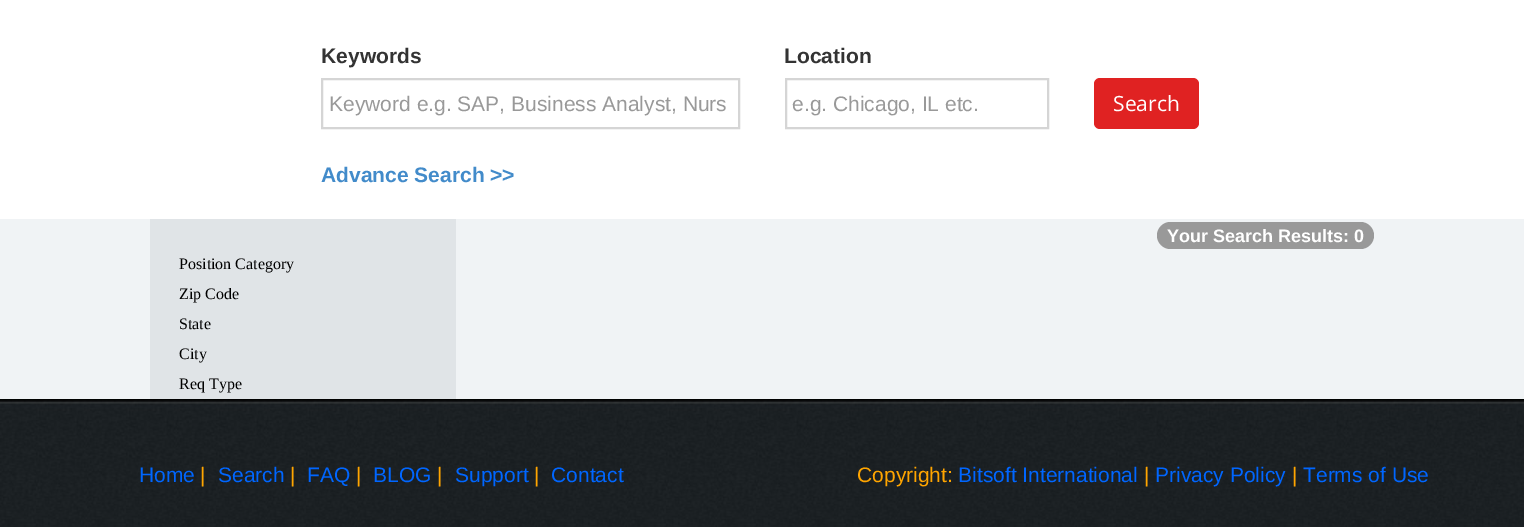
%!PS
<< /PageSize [1524 527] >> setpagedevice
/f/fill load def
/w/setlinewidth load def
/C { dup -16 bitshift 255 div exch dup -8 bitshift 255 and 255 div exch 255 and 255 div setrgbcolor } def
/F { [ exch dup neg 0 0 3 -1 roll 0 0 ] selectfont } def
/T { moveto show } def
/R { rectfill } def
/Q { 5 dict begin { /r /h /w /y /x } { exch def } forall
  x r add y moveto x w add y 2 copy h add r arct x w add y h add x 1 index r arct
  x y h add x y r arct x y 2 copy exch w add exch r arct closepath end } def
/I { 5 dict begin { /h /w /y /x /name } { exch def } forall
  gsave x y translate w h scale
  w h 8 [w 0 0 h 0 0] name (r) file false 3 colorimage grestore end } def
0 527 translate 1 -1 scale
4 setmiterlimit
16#FFFFFF C
0 0 1524 527 R
/LiberationSans-Bold 21 F
16#333333 C
(Keywords) 321 63 T
16#D5D5D5 C
2 w
322 79 417 49 rectstroke
/LiberationSans-Regular 21 F
16#999999 C
(Keyword e.g. SAP, Business Analyst, Nurs) 329 111 T
/LiberationSans-Bold 21 F
16#333333 C
(Location) 784 63 T
16#D5D5D5 C
786 79 262 49 rectstroke
/LiberationSans-Regular 21 F
16#999999 C
(e.g. Chicago, IL etc.) 792 111 T
16#E02222 C
1094 78 105 51 6 Q f
/OpenSans-Regular 21 F
16#FFFFFF C
(Search) 1113 111 T
/LiberationSans-Bold 21 F
16#428BCA C
(Advance Search >>) 321 182 T
16#F0F3F5 C
0 219 1524 180 R
16#999999 C
1157 222 217 27 13.5 Q f
/LiberationSans-Bold 18 F
16#FFFFFF C
(Your Search Results: 0) 1167 242 T
16#E0E4E7 C
150 219 306 180 R
/LiberationSerif-Regular 16 F
16#000000 C
(Position Category) 179 269 T
(Zip Code) 179 299 T
(State) 179 329 T
(City) 179 359 T
(Req Type) 179 389 T
(1.rgb) 0 399 1524 128 I
/LiberationSans-Regular 21 F
16#0066FF C
(Home) 139 482 T
16#FFA500 C
(|) 200 482 T
16#0066FF C
(Search) 218 482 T
16#FFA500 C
(|) 290 482 T
16#0066FF C
(FAQ) 307 482 T
16#FFA500 C
(|) 356 482 T
16#0066FF C
(BLOG) 373 482 T
16#FFA500 C
(|) 437 482 T
16#0066FF C
(Support) 455 482 T
16#FFA500 C
(|) 534 482 T
16#0066FF C
(Contact) 551 482 T
16#FFA500 C
(Copyright:) 857 482 T
16#0066FF C
(Bitsoft International) 958 482 T
16#FFA500 C
(|) 1144 482 T
16#0066FF C
(Privacy Policy) 1155 482 T
16#FFA500 C
(|) 1292 482 T
16#0066FF C
(Terms of Use) 1303 482 T
showpage
